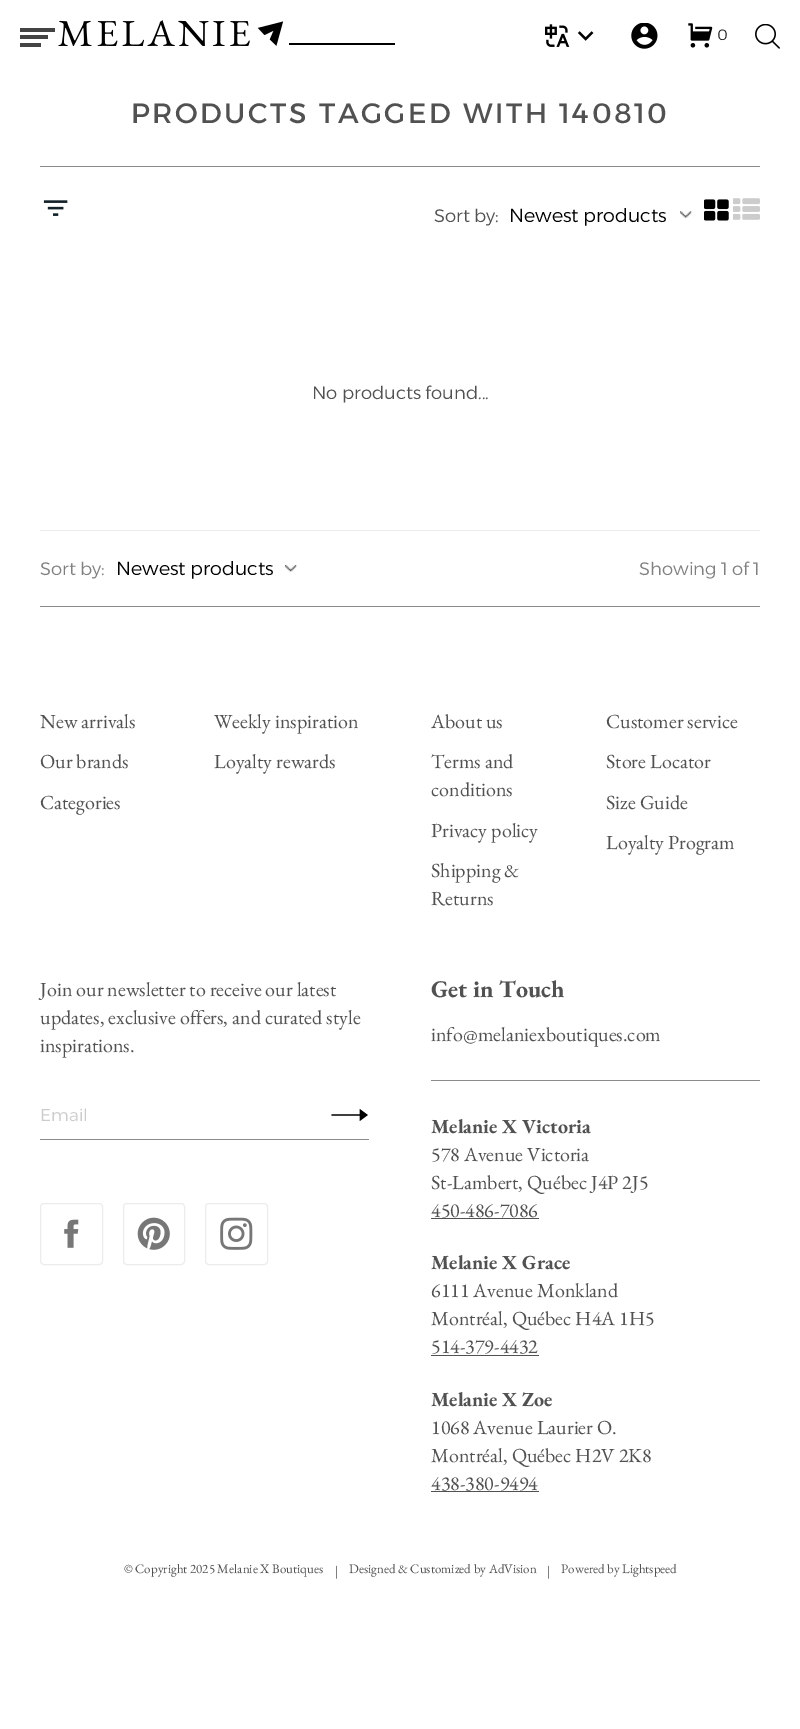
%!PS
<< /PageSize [800 1729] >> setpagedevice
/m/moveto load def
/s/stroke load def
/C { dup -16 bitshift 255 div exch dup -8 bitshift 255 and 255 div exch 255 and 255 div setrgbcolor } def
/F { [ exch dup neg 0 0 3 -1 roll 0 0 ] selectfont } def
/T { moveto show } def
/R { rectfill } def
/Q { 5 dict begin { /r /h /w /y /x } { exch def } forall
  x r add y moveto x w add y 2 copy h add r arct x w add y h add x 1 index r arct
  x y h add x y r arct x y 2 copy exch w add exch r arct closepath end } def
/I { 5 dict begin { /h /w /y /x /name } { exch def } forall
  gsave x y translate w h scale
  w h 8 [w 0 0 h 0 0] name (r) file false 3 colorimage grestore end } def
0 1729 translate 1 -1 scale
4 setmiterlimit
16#FFFFFF C
0 0 800 1729 R
16#444444 C
20 28 35 4 R
20 35 28 4 R
20 43 21 4 R
(1.rgb) 58 20 337 26 I
(2.rgb) 545 24 25 23 I
(3.rgb) 578 31 16 10 I
(4.rgb) 631 23 27 26 I
(5.rgb) 688 23 25 25 I
/Alexandria-Light 15 F
16#222222 C
(0) 717 40 T
(6.rgb) 755 24 25 25 I
/Alexandria-Regular 28 F
16#515151 C
131 123 m 2.5 0 (PRODUCTS TAGGED WITH 140810) ashow
16#8C8C8C C
40 166 720 1 R
40 606 720 1 R
(7.rgb) 43 200 25 16 I
/Alexandria-Light 18 F
16#515151 C
(Sort by:) 434 222 T
(8.rgb) 680 211 12 7 I
/Alexandria-Light 19 F
16#000000 C
(Newest products) 509 222 T
(9.rgb) 704 199 25 22 I
(10.rgb) 733 198 27 22 I
/Alexandria-Light 18 F
16#515151 C
(No products found...) 312 399 T
16#EAEDEC C
40 530 720 1 R
16#808080 C
(Sort by:) 40 575 T
(11.rgb) 285 565 12 7 I
/Alexandria-Light 19 F
16#000000 C
(Newest products) 116 575 T
/Alexandria-Light 18 F
16#808080 C
(Showing 1 of 1) 639 575 T
/EBGaramond-Regular 20 F
16#515151 C
(New arrivals) 40 728 T
(Weekly inspiration) 214 728 T
(Our brands) 40 768 T
(Loyalty rewards) 214 768 T
(Categories) 40 809 T
(About us) 431 728 T
(Customer service) 606 728 T
(Terms and) 431 768 T
(conditions) 431 796 T
(Store Locator) 606 768 T
(Size Guide) 606 809 T
(Privacy policy) 431 837 T
(Loyalty Program) 606 849 T
(Shipping &) 431 877 T
(Returns) 431 905 T
(Join our newsletter to receive our latest) 40 996 T
(updates, exclusive offers, and curated style) 40 1024 T
(inspirations.) 40 1052 T
16#8C8C8C C
40 1139 329 1 R
/Alexandria-Light 17 F
16#CCCCCC C
(Email) 40 1121 T
(12.rgb) 331 1109 37 12 I
16#EAEDEC C
40.5 1203.5 62 61 3.5 Q s
(13.rgb) 64 1219 15 29 I
123.5 1203.5 61 61 3.5 Q s
(14.rgb) 137 1217 33 33 I
205.5 1203.5 62 61 3.5 Q s
(15.rgb) 220 1217 33 33 I
/EBGaramond-Bold 24 F
16#515151 C
(Get in Touch) 431 997 T
16#8C8C8C C
431 1080 329 1 R
/EBGaramond-Regular 20 F
16#515151 C
(info@melaniexboutiques.com) 431 1041 T
/EBGaramond-Bold 20 F
(Melanie X Victoria) 431 1133 T
/EBGaramond-Regular 20 F
(578 Avenue Victoria) 431 1161 T
(St-Lambert, Québec J4P 2J5) 431 1189 T
(450-486-7086) 431 1217 T
431 1218 108 1 R
/EBGaramond-Bold 20 F
(Melanie X Grace) 431 1269 T
/EBGaramond-Regular 20 F
(6111 Avenue Monkland) 431 1297 T
(Montréal, Québec H4A 1H5) 431 1325 T
(514-379-4432) 431 1353 T
431 1355 108 1 R
/EBGaramond-Bold 20 F
(Melanie X Zoe) 431 1406 T
/EBGaramond-Regular 20 F
(1068 Avenue Laurier O.) 431 1434 T
(Montréal, Québec H2V 2K8) 431 1462 T
(438-380-9494) 431 1490 T
431 1491 108 1 R
/EBGaramond-Regular 13 F
(© Copyright 2025 Melanie X Boutiques) 124 1573 T
(|) 335 1575 T
(Designed & Customized by AdVision) 349 1573 T
(|) 547 1575 T
(Powered by Lightspeed) 561 1573 T
showpage
